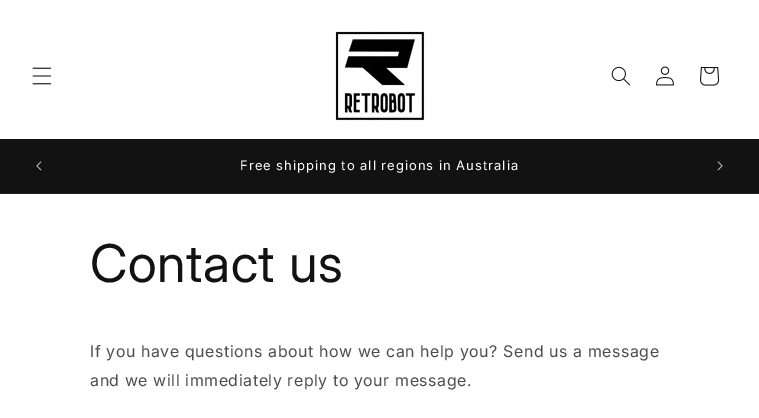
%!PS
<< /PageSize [759 418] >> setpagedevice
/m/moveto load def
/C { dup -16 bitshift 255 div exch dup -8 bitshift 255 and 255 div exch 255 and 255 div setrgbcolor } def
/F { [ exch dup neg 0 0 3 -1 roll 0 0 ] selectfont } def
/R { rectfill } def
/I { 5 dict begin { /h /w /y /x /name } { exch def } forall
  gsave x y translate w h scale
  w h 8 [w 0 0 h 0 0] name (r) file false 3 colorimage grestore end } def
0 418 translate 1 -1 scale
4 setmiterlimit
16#FFFFFF C
0 0 759 418 R
(1.rgb) 32 67 20 18 I
(2.rgb) 335 31 90 91 I
(3.rgb) 611 66 19 20 I
(4.rgb) 656 66 18 20 I
(5.rgb) 700 67 20 19 I
16#121212 C
0 139 759 54 R
16#252525 C
0 193 759 1 R
(6.rgb) 36 161 6 10 I
/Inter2-Regular 13 F
16#FFFFFF C
240 170 m 1 0 (Free shipping to all regions in Australia) ashow
(7.rgb) 717 161 6 10 I
/Inter-Regular 52 F
16#121212 C
90 282 m .6 0 (Contact us) ashow
/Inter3-Regular 16 F
16#4D4D4D C
90 357 m .6 0 (If you have questions about how we can help you? Send us a message) ashow
90 386 m .6 0 (and we will immediately reply to your message.) ashow
showpage
